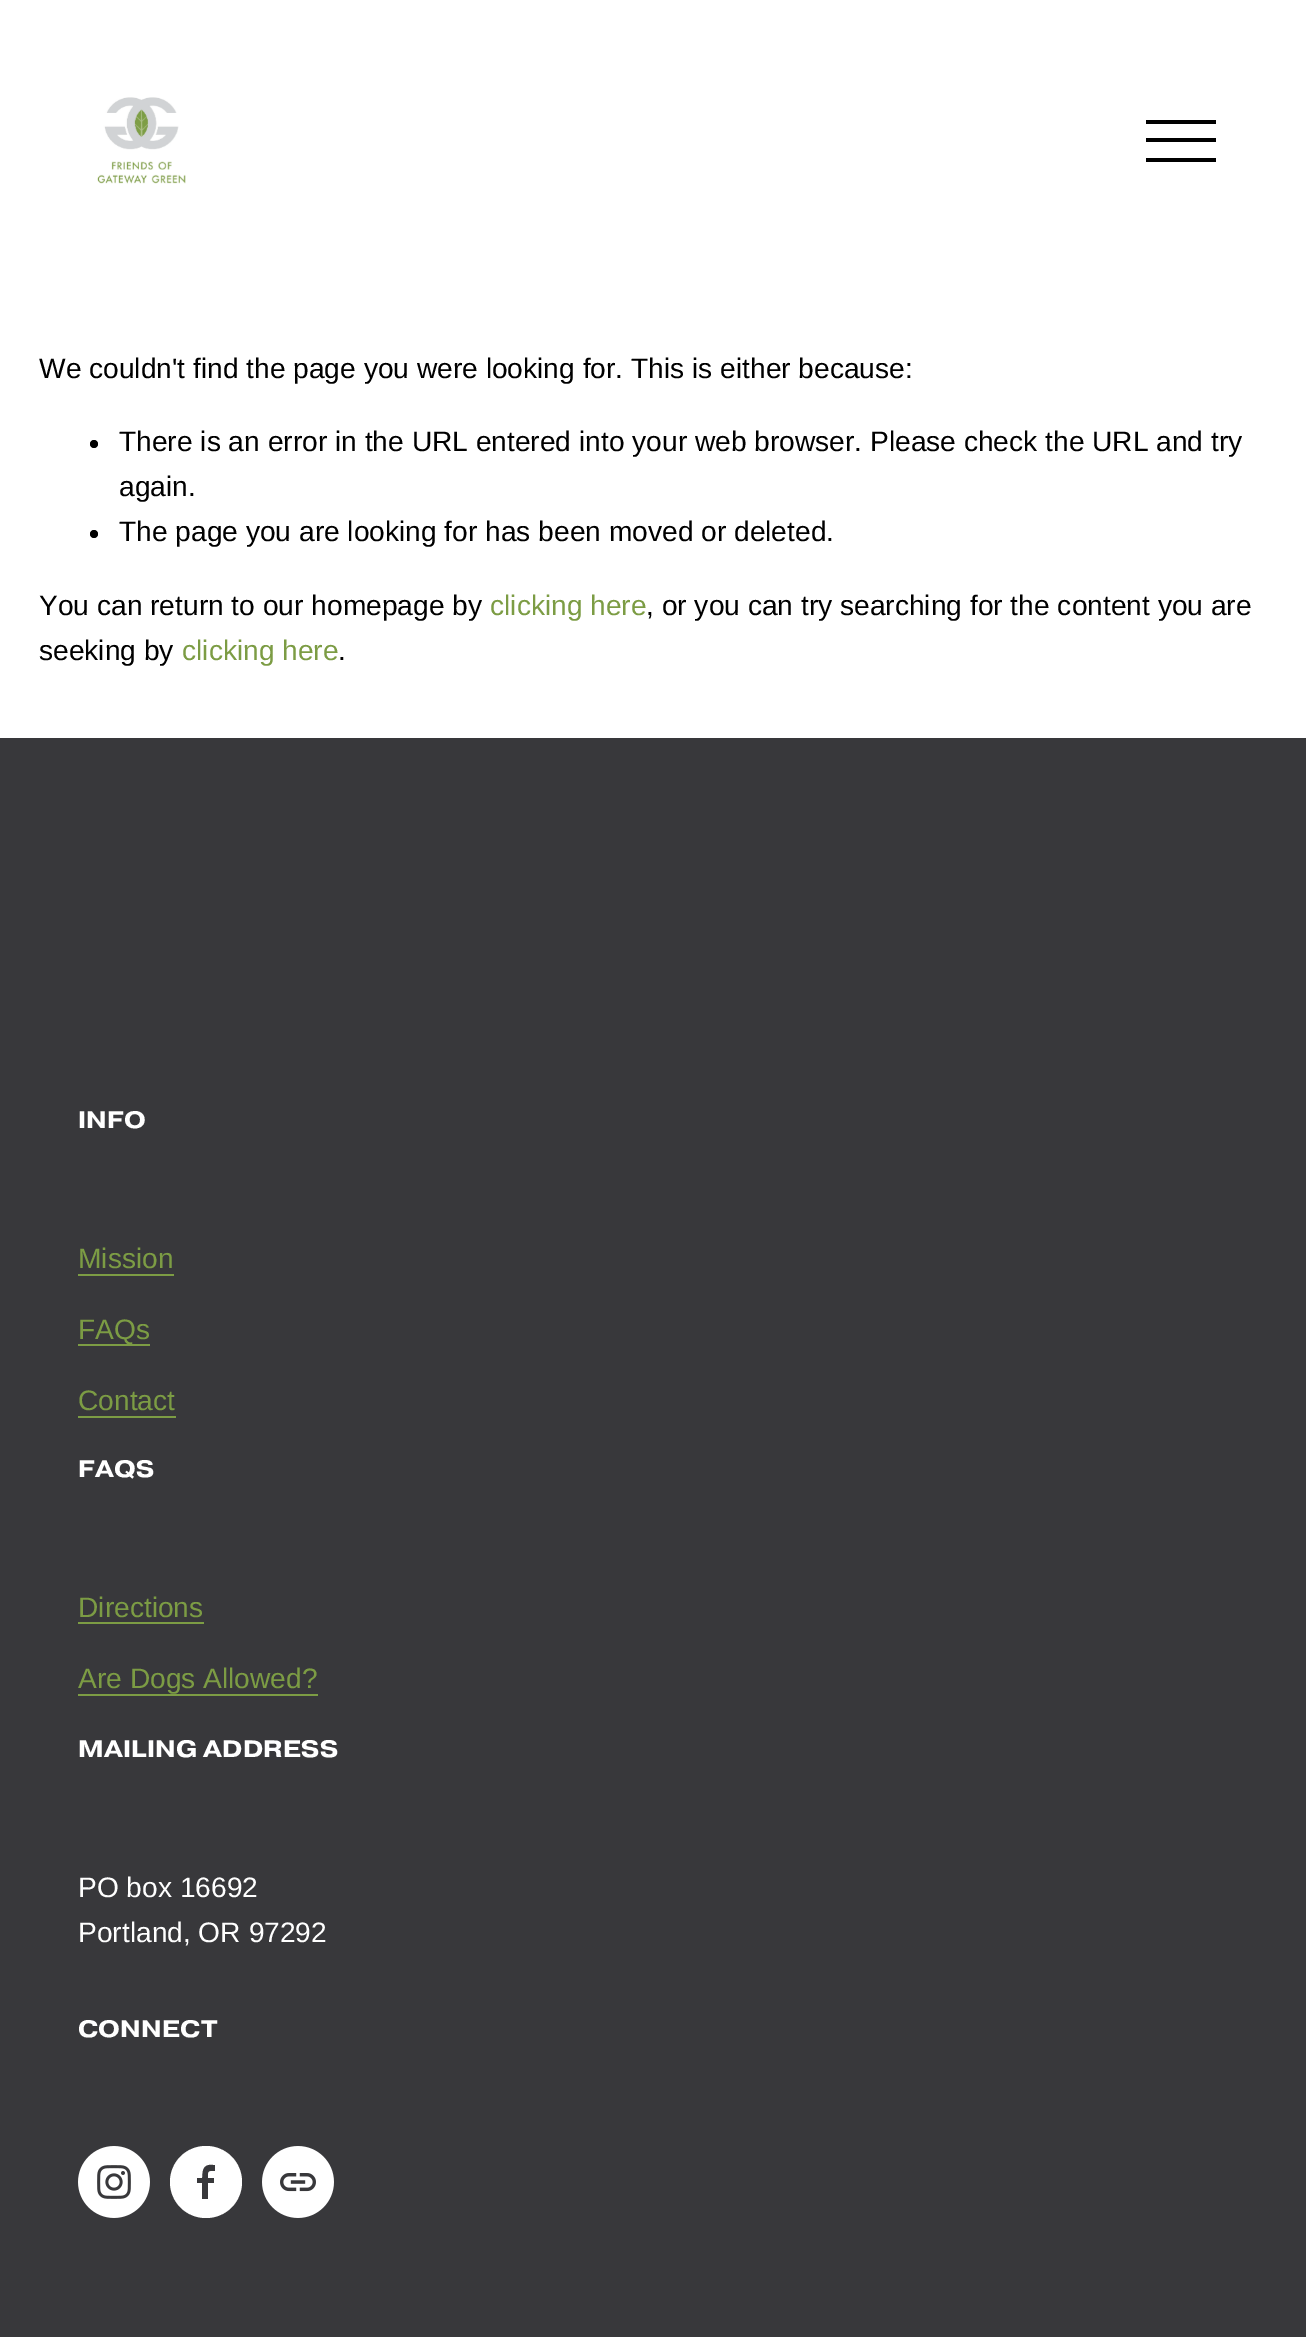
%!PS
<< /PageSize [1306 2337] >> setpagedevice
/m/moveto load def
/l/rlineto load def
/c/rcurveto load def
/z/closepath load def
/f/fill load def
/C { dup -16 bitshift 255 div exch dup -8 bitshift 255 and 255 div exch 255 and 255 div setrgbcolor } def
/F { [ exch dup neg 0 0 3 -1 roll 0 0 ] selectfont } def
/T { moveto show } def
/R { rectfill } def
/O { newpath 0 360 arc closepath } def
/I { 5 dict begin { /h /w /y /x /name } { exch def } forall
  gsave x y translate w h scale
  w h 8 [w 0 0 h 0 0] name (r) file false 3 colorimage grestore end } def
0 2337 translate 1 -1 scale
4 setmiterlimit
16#FFFFFF C
0 0 1306 2337 R
(1.rgb) 97 97 89 87 I
16#000000 C
1146 120 70 4 R
1146 138 70 4 R
1146 158 70 4 R
/LiberationSans-Regular 28.15 F
(We couldn't find the page you were looking for. This is either because:) 39 378 T
94 444 4 O f
(There is an error in the URL entered into your web browser. Please check the URL and try) 119 451 T
(again.) 119 496 T
94 534 4 O f
(The page you are looking for has been moved or deleted.) 119 541 T
(You can return to our homepage by) 39 615 T
16#7C9C44 C
(clicking here) 490 615 T
16#000000 C
(, or you can try searching for the content you are) 646 615 T
(seeking by) 39 660 T
16#7C9C44 C
(clicking here) 182 660 T
16#000000 C
(.) 338 660 T
16#38383B C
0 738 1306 1599 R
/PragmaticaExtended-Bold 23.75 F
16#FFFFFF C
78 1128 m .25 0 (INFO) ashow
/LiberationSans-Regular 28.15 F
16#7C9C44 C
(Mission) 78 1268 T
78 1274 96 2 R
78 1344 72 2 R
(FAQs) 78 1339 T
(Contact) 78 1410 T
78 1416 98 2 R
/PragmaticaExtended-Bold 23.75 F
16#FFFFFF C
78 1477 m .25 0 (FAQS) ashow
/LiberationSans-Regular 28.15 F
16#7C9C44 C
(Directions) 78 1617 T
78 1622 126 2 R
(Are Dogs Allowed?) 78 1688 T
78 1694 240 2 R
/PragmaticaExtended-Bold 23.75 F
16#FFFFFF C
78 1757 m .25 0 (MAILING ADDRESS) ashow
/LiberationSans-Regular 28.15 F
(PO box 16692) 78 1897 T
(Portland, OR 97292) 78 1942 T
/PragmaticaExtended-Bold 23.75 F
78 2037 m .25 0 (CONNECT) ashow
(2.rgb) 78 2146 72 72 I
206 2146 m -20 0 -36 16 -36 36 c 0 20 16 36 36 36 c 20 0 36 -16 36 -36 c 0 -20 -16 -36 -36 -36 c z 215 2171 m 0 -6 l -11 -2 -13 3 -13 13 c -5 0 l 0 5 l 5 0 l 0 16 l 6 0 l 0 -16 l 6 0 l 0 -5 l -6 0 l 0 -7 0 -7 7 -7 c z eofill
(3.rgb) 262 2146 72 72 I
showpage
